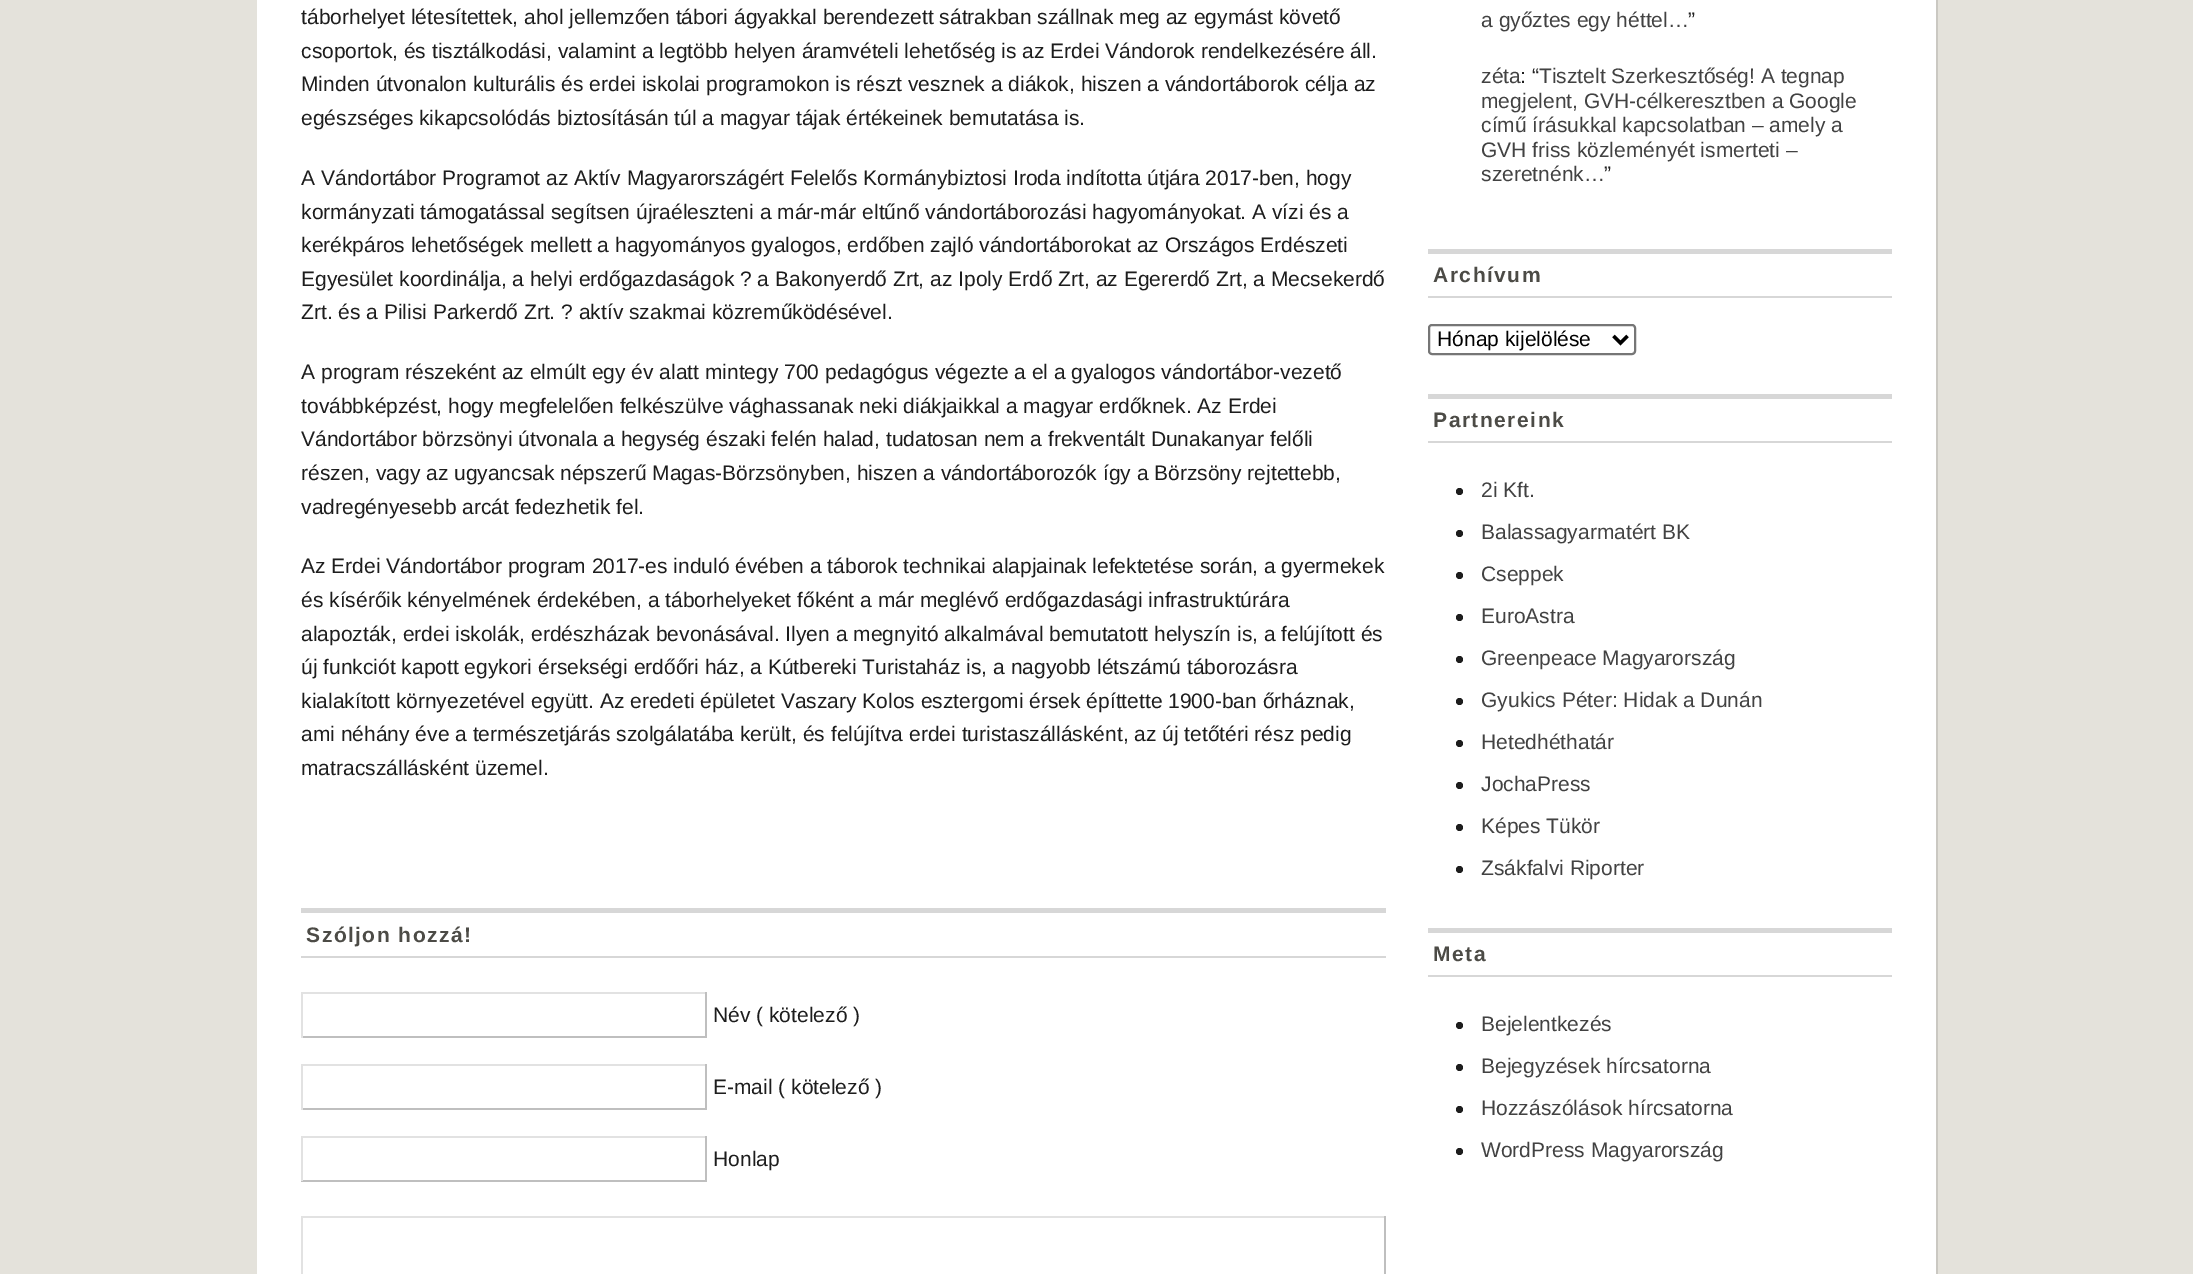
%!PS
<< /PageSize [2193 1274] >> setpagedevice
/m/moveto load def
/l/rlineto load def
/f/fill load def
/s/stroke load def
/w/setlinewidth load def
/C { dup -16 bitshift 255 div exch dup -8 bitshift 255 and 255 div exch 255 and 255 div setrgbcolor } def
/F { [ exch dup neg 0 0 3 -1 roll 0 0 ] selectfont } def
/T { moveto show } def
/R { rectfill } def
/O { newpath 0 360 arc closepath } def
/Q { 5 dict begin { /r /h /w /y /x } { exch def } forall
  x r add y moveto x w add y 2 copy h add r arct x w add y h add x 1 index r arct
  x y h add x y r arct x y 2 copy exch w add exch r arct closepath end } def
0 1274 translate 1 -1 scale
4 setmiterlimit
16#E4E2DB C
0 0 2193 1274 R
16#FFFFFF C
257 0 1679 1274 R
16#CAC8C2 C
1936 0 2 1274 R
/LiberationSans-Regular 21 F
16#1D1D1D C
(táborhelyet létesítettek, ahol jellemzően tábori ágyakkal berendezett sátrakban szállnak meg az egymást követő) 301 24 T
(csoportok, és tisztálkodási, valamint a legtöbb helyen áramvételi lehetőség is az Erdei Vándorok rendelkezésére áll.) 301 58 T
(Minden útvonalon kulturális és erdei iskolai programokon is részt vesznek a diákok, hiszen a vándortáborok célja az) 301 91 T
(egészséges kikapcsolódás biztosításán túl a magyar tájak értékeinek bemutatása is.) 301 125 T
(A Vándortábor Programot az Aktív Magyarországért Felelős Kormánybiztosi Iroda indította útjára 2017-ben, hogy) 301 185 T
(kormányzati támogatással segítsen újraéleszteni a már-már eltűnő vándortáborozási hagyományokat. A vízi és a) 301 219 T
(kerékpáros lehetőségek mellett a hagyományos gyalogos, erdőben zajló vándortáborokat az Országos Erdészeti) 301 252 T
(Egyesület koordinálja, a helyi erdőgazdaságok ? a Bakonyerdő Zrt, az Ipoly Erdő Zrt, az Egererdő Zrt, a Mecsekerdő) 301 286 T
(Zrt. és a Pilisi Parkerdő Zrt. ? aktív szakmai közreműködésével.) 301 319 T
(A program részeként az elmúlt egy év alatt mintegy 700 pedagógus végezte a el a gyalogos vándortábor-vezető) 301 379 T
(továbbképzést, hogy megfelelően felkészülve vághassanak neki diákjaikkal a magyar erdőknek. Az Erdei) 301 413 T
(Vándortábor börzsönyi útvonala a hegység északi felén halad, tudatosan nem a frekventált Dunakanyar felőli) 301 446 T
(részen, vagy az ugyancsak népszerű Magas-Börzsönyben, hiszen a vándortáborozók így a Börzsöny rejtettebb,) 301 480 T
(vadregényesebb arcát fedezhetik fel.) 301 514 T
(Az Erdei Vándortábor program 2017-es induló évében a táborok technikai alapjainak lefektetése során, a gyermekek) 301 573 T
(és kísérőik kényelmének érdekében, a táborhelyeket főként a már meglévő erdőgazdasági infrastruktúrára) 301 607 T
(alapozták, erdei iskolák, erdészházak bevonásával. Ilyen a megnyitó alkalmával bemutatott helyszín is, a felújított és) 301 641 T
(új funkciót kapott egykori érsekségi erdőőri ház, a Kútbereki Turistaház is, a nagyobb létszámú táborozásra) 301 674 T
(kialakított környezetével együtt. Az eredeti épületet Vaszary Kolos esztergomi érsek építtette 1900-ban őrháznak,) 301 708 T
(ami néhány éve a természetjárás szolgálatába került, és felújítva erdei turistaszállásként, az új tetőtéri rész pedig) 301 741 T
(matracszállásként üzemel.) 301 775 T
16#D7D7D7 C
301 908 1085 5 R
301 956 1085 2 R
/LiberationSans-Bold 21 F
16#4C4B46 C
306 942 m 1.5 0 (Szóljon hozzá!) ashow
16#E2E2E2 C
301 992 406 2 R
16#BFBFBF C
705 992 2 46 R
301 1036 406 2 R
16#E2E2E2 C
301 992 2 46 R
/LiberationSans-Regular 21 F
16#1D1D1D C
(Név \( kötelező \)) 713 1022 T
16#E2E2E2 C
301 1064 406 2 R
16#BFBFBF C
705 1064 2 46 R
301 1108 406 2 R
16#E2E2E2 C
301 1064 2 46 R
16#1D1D1D C
(E-mail \( kötelező \)) 713 1094 T
16#E2E2E2 C
301 1136 406 2 R
16#BFBFBF C
705 1136 2 45 R
301 1180 406 2 R
16#E2E2E2 C
301 1136 2 45 R
16#1D1D1D C
(Honlap) 713 1166 T
16#E2E2E2 C
301 1216 1085 2 R
16#BFBFBF C
1384 1216 2 58 R
16#E2E2E2 C
301 1216 2 58 R
16#424242 C
(a győztes egy héttel…) 1481 27 T
16#1D1D1D C
(”) 1688 27 T
16#424242 C
(zéta) 1481 83 T
16#1D1D1D C
(: “) 1520 83 T
16#424242 C
(Tisztelt Szerkesztőség! A tegnap) 1539 83 T
(megjelent, GVH-célkeresztben a Google) 1481 108 T
(című írásukkal kapcsolatban – amely a) 1481 132 T
(GVH friss közleményét ismerteti –) 1481 157 T
(szeretnénk…) 1481 181 T
16#1D1D1D C
(”) 1604 181 T
16#D7D7D7 C
1428 249 464 5 R
1428 296 464 2 R
/LiberationSans-Bold 21 F
16#4C4B46 C
1433 282 m 1.5 0 (Archívum) ashow
16#767676 C
2 w
1429 325 206 29 3 Q s
16#000000 C
3.5 w
1613.5 336 m 7 7 l 7 -7 l s
/LiberationSans-Regular 21 F
(Hónap kijelölése) 1437 346 T
16#D7D7D7 C
1428 394 464 5 R
1428 441 464 2 R
/LiberationSans-Bold 21 F
16#4C4B46 C
1433 427 m 1.5 0 (Partnereink) ashow
16#1D1D1D C
1459.5 491.5 3.5 O f
/LiberationSans-Regular 21 F
16#424242 C
(2i Kft.) 1481 497 T
16#1D1D1D C
1459.5 533.5 3.5 O f
16#424242 C
(Balassagyarmatért BK) 1481 539 T
16#1D1D1D C
1459.5 575.5 3.5 O f
16#424242 C
(Cseppek) 1481 581 T
16#1D1D1D C
1459.5 617.5 3.5 O f
16#424242 C
(EuroAstra) 1481 623 T
16#1D1D1D C
1459.5 659.5 3.5 O f
16#424242 C
(Greenpeace Magyarország) 1481 665 T
16#1D1D1D C
1459.5 701.5 3.5 O f
16#424242 C
(Gyukics Péter: Hidak a Dunán) 1481 707 T
16#1D1D1D C
1459.5 743.5 3.5 O f
16#424242 C
(Hetedhéthatár) 1481 749 T
16#1D1D1D C
1459.5 785.5 3.5 O f
16#424242 C
(JochaPress) 1481 791 T
16#1D1D1D C
1459.5 827.5 3.5 O f
16#424242 C
(Képes Tükör) 1481 833 T
16#1D1D1D C
1459.5 869.5 3.5 O f
16#424242 C
(Zsákfalvi Riporter) 1481 875 T
16#D7D7D7 C
1428 928 464 5 R
1428 975 464 2 R
/LiberationSans-Bold 21 F
16#4C4B46 C
1433 961 m 1.5 0 (Meta) ashow
16#1D1D1D C
1459.5 1025.5 3.5 O f
/LiberationSans-Regular 21 F
16#424242 C
(Bejelentkezés) 1481 1031 T
16#1D1D1D C
1459.5 1067.5 3.5 O f
16#424242 C
(Bejegyzések hírcsatorna) 1481 1073 T
16#1D1D1D C
1459.5 1109.5 3.5 O f
16#424242 C
(Hozzászólások hírcsatorna) 1481 1115 T
16#1D1D1D C
1459.5 1151.5 3.5 O f
16#424242 C
(WordPress Magyarország) 1481 1157 T
showpage
